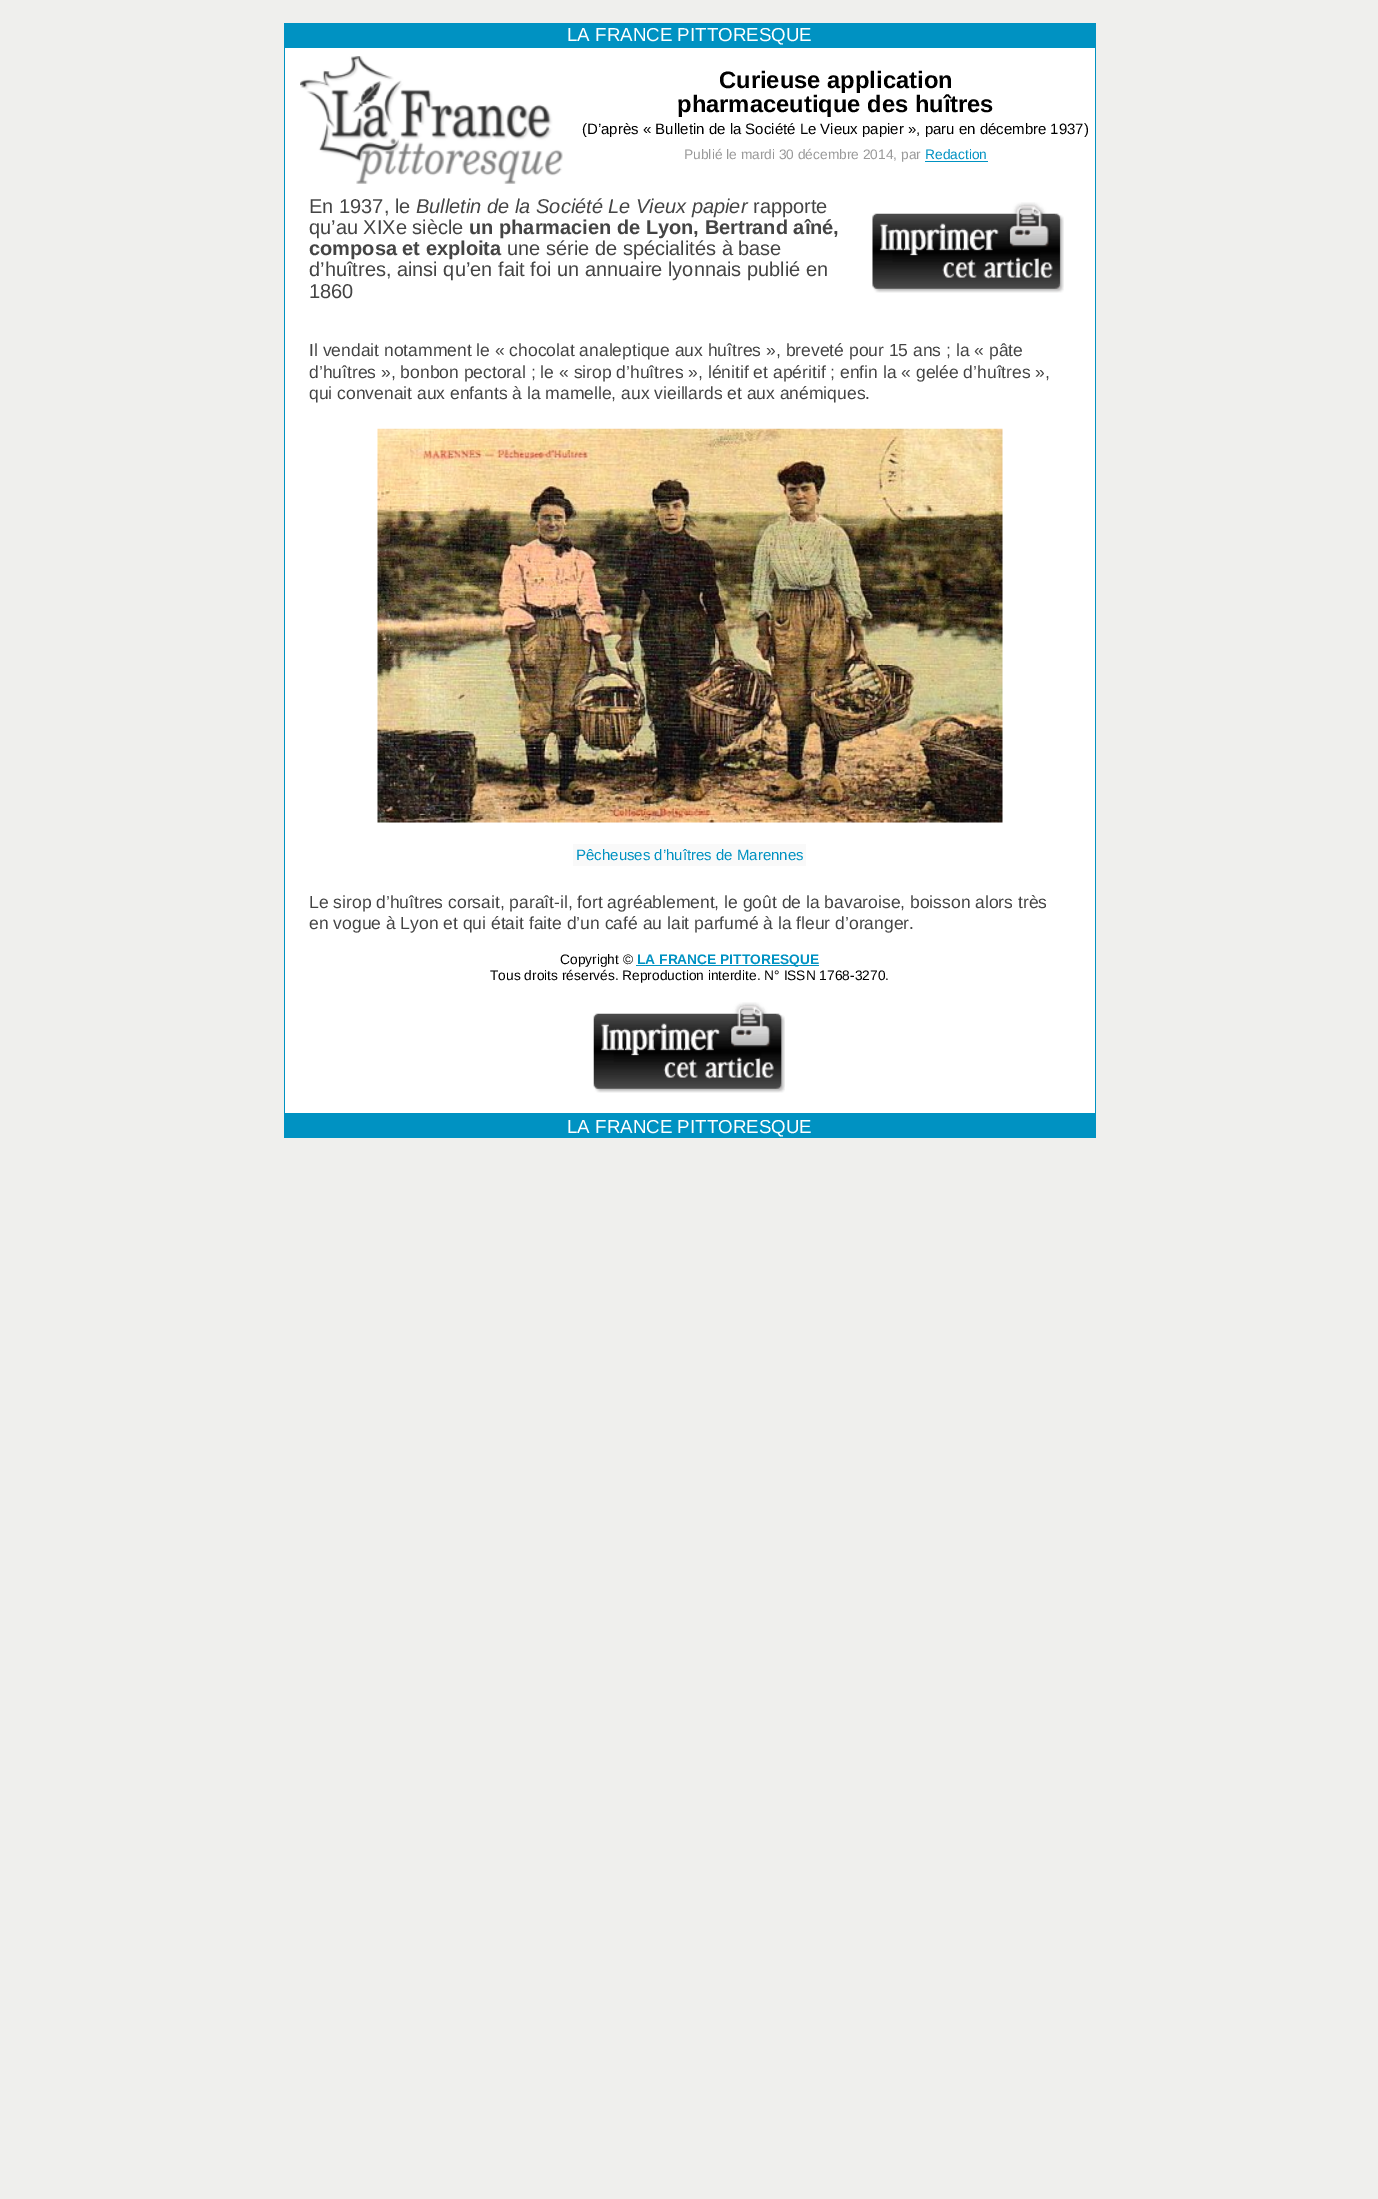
%!PS
<< /PageSize [1378 2199] >> setpagedevice
/C { dup -16 bitshift 255 div exch dup -8 bitshift 255 and 255 div exch 255 and 255 div setrgbcolor } def
/F { [ exch dup neg 0 0 3 -1 roll 0 0 ] selectfont } def
/T { moveto show } def
/R { rectfill } def
/I { 5 dict begin { /h /w /y /x /name } { exch def } forall
  gsave x y translate w h scale
  w h 8 [w 0 0 h 0 0] name (r) file false 3 colorimage grestore end } def
0 2199 translate 1 -1 scale
4 setmiterlimit
16#EFEFED C
0 0 1378 2199 R
16#0092C2 C
284 23 812 1115 R
/LiberationSans-Regular 18.75 F
16#FFFFFF C
(LA FRANCE PITTORESQUE) 567 41 T
285 48 810 1065 R
(1.rgb) 300 56 263 128 I
/LiberationSans-Bold 23.75 F
16#000000 C
(Curieuse application) 719 88 T
(pharmaceutique des huîtres) 677 112 T
/LiberationSans-Regular 15 F
(\(D’après « Bulletin de la Société Le Vieux papier », paru en décembre 1937\)) 582 134 T
/LiberationSans-Regular 13.75 F
16#999999 C
(Publié le mardi 30 décembre 2014, par) 684 159 T
16#0092C2 C
(Redaction) 925 159 T
925 161 63 1 R
/LiberationSans-Regular 20 F
16#444444 C
(En 1937, le) 309 213 T
/LiberationSans-Italic 20 F
(Bulletin de la Société Le Vieux papier) 416 213 T
/LiberationSans-Regular 20 F
(rapporte) 753 213 T
(qu’au XIXe siècle) 309 234 T
/LiberationSans-Bold 20 F
(un pharmacien de Lyon, Bertrand aîné,) 469 234 T
(composa et exploita) 309 255 T
/LiberationSans-Regular 20 F
(une série de spécialités à base) 507 255 T
(d’huîtres, ainsi qu’en fait foi un annuaire lyonnais publié en) 309 276 T
(1860) 309 298 T
(2.rgb) 872 202 192 91 I
/LiberationSans-Regular 17.5 F
(Il vendait notamment le « chocolat analeptique aux huîtres », breveté pour 15 ans ; la « pâte) 309 356 T
(d’huîtres », bonbon pectoral ; le « sirop d’huîtres », lénitif et apéritif ; enfin la « gelée d’huîtres »,) 309 378 T
(qui convenait aux enfants à la mamelle, aux vieillards et aux anémiques.) 309 399 T
(3.rgb) 377 428 626 395 I
16#F9F9F9 C
573 844 233 22 R
/LiberationSans-Regular 15 F
16#0092C2 C
(Pêcheuses d’huîtres de Marennes) 576 860 T
/LiberationSans-Regular 17.5 F
16#444444 C
(Le sirop d’huîtres corsait, paraît-il, fort agréablement, le goût de la bavaroise, boisson alors très) 309 908 T
(en vogue à Lyon et qui était faite d’un café au lait parfumé à la fleur d’oranger.) 309 929 T
/LiberationSans-Regular 13.75 F
16#000000 C
(Copyright ©) 560 964 T
16#0092C2 C
636 965 183 1 R
/LiberationSans-Bold 13.75 F
(LA FRANCE PITTORESQUE) 637 964 T
/LiberationSans-Regular 13.75 F
16#000000 C
(Tous droits réservés. Reproduction interdite. N° ISSN 1768-3270.) 490 980 T
(4.rgb) 593 1002 192 91 I
/LiberationSans-Regular 18.75 F
16#FFFFFF C
(LA FRANCE PITTORESQUE) 567 1133 T
showpage
